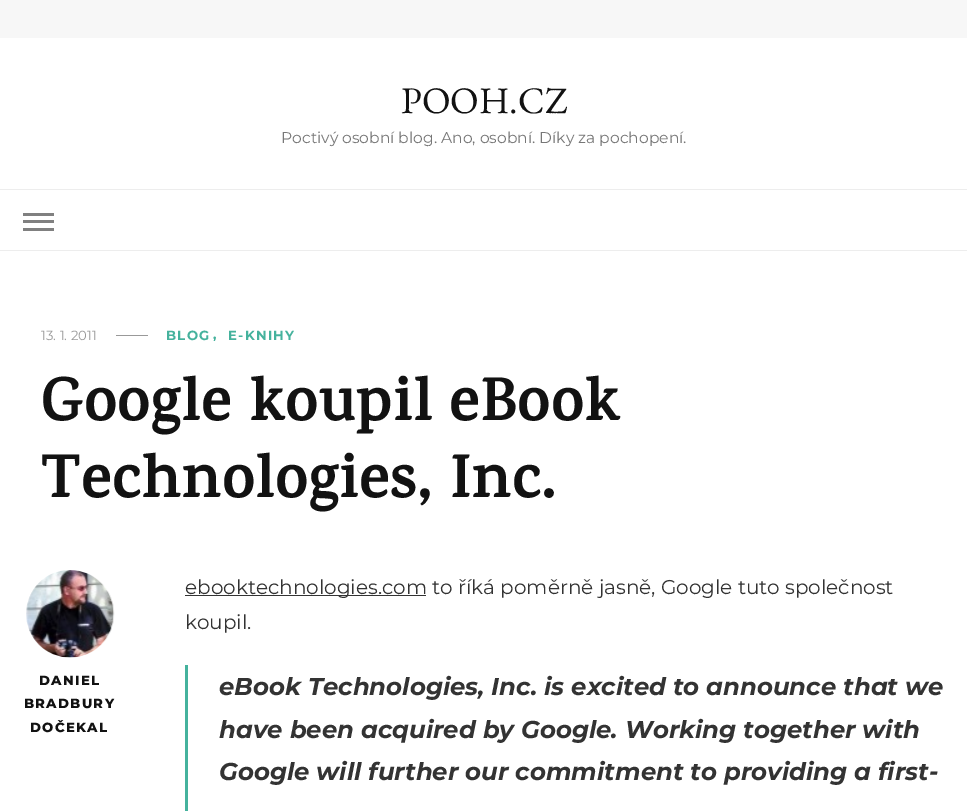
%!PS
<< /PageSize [967 811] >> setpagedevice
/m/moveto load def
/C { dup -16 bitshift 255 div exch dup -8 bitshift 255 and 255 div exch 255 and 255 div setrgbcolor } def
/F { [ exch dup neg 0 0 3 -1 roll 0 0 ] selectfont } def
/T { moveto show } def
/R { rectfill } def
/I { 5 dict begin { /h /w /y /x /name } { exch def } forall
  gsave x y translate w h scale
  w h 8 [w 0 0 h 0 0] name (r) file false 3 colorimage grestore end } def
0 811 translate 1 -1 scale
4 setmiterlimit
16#FFFFFF C
0 0 967 811 R
16#F7F7F7 C
0 0 967 38 R
/EBGaramond-Regular 37.5 F
16#121212 C
(POOH.CZ) 401 113 T
/Montserrat-Regular 15.55 F
16#777777 C
(Poctivý osobní blog. Ano, osobní. Díky za pochopení.) 281 143 T
16#EDEDED C
0 189 967 1 R
0 250 967 1 R
16#808080 C
23 213 31 3 R
23 220 31 3 R
23 228 31 3 R
/Montserrat-Regular 13.25 F
16#999999 C
(13. 1. 2011) 41 340 T
116 335 32 1 R
/Montserrat-Bold 13.25 F
16#45B29D C
166 340 m 1.25 0 (BLOG) ashow
213 339 m 1.25 0 (,) ashow
228 340 m 1.25 0 (E-KNIHY) ashow
/Karma-Bold 62.25 F
16#121212 C
(Google koupil eBook) 41 420 T
(Technologies, Inc.) 41 497 T
(1.rgb) 26 570 89 88 I
/Montserrat-ExtraBold 13.25 F
39 685 m 1.25 0 (DANIEL) ashow
24 708 m 1.25 0 (BRADBURY) ashow
30 732 m 1.25 0 (DOČEKAL) ashow
16#333333 C
185 595 241 1 R
/Montserrat-Regular 20 F
(ebooktechnologies.com to říká poměrně jasně, Google tuto společnost) 185 594 T
(koupil.) 185 629 T
16#45B29D C
185 665 3 146 R
/Montserrat-BoldItalic 24.4 F
16#333333 C
(eBook Technologies, Inc. is excited to announce that we) 219 695 T
(have been acquired by Google. Working together with) 219 738 T
(Google will further our commitment to providing a first-) 219 780 T
showpage
